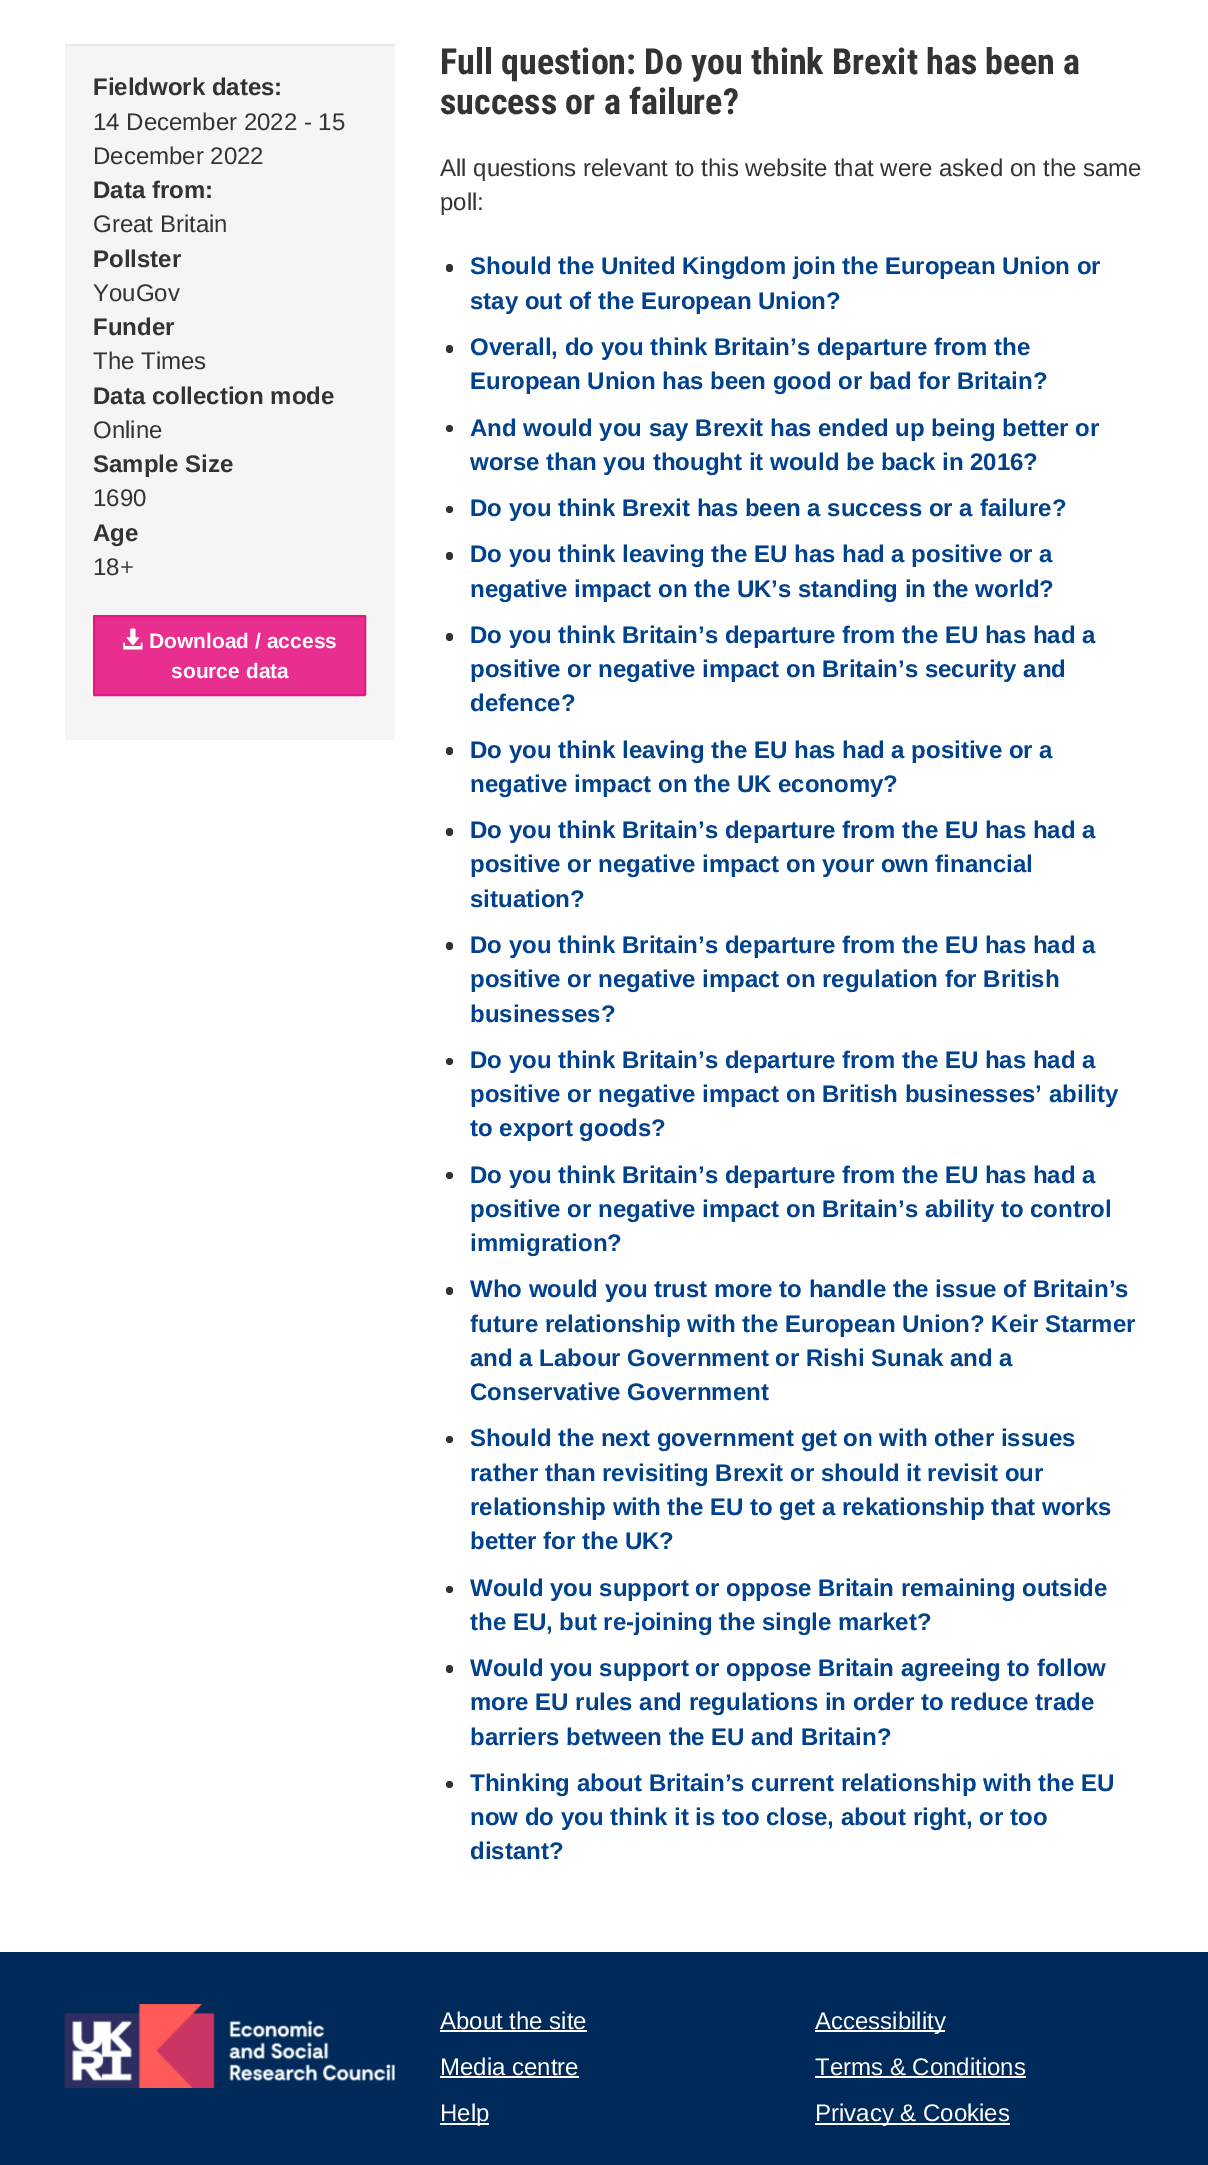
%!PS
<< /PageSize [1208 2165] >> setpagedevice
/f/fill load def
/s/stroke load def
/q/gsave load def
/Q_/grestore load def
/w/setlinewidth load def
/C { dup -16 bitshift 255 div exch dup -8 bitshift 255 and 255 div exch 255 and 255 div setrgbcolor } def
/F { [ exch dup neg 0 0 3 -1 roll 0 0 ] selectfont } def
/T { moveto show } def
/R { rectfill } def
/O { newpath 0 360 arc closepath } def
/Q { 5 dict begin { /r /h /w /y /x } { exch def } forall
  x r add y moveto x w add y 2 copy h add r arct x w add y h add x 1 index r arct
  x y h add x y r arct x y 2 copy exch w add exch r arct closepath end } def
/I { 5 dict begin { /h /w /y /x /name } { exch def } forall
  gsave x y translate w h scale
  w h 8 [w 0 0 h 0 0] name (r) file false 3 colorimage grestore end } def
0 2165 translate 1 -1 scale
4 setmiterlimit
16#FFFFFF C
0 0 1208 2165 R
16#F5F5F5 C
65 46 330 694 R
16#E9E9E9 C
65 44 330 2 R
/LiberationSans-Bold 24 F
16#333333 C
(Fieldwork dates:) 93 95 T
/LiberationSans-Regular 24 F
(14 December 2022 - 15) 93 130 T
(December 2022) 93 164 T
/LiberationSans-Bold 24 F
(Data from:) 93 198 T
/LiberationSans-Regular 24 F
(Great Britain) 93 232 T
/LiberationSans-Bold 24 F
(Pollster) 93 267 T
/LiberationSans-Regular 24 F
(YouGov) 93 301 T
/LiberationSans-Bold 24 F
(Funder) 93 335 T
/LiberationSans-Regular 24 F
(The Times) 93 369 T
/LiberationSans-Bold 24 F
(Data collection mode) 93 404 T
/LiberationSans-Regular 24 F
(Online) 93 438 T
/LiberationSans-Bold 24 F
(Sample Size) 93 472 T
/LiberationSans-Regular 24 F
(1690) 93 506 T
/LiberationSans-Bold 24 F
(Age) 93 541 T
/LiberationSans-Regular 24 F
(18+) 93 575 T
16#E82E8F C
94 616 271 79 .5 Q q f Q_
16#E31983 C
2 w
s
(1.rgb) 123 628 20 22 I
/LiberationSans-Bold 21 F
16#FFFFFF C
(Download / access) 149 648 T
(source data) 171 678 T
/RobotoCondensed-Bold 36 F
16#333333 C
(Full question: Do you think Brexit has been a) 440 74 T
(success or a failure?) 440 114 T
/LiberationSans-Regular 24 F
(All questions relevant to this website that were asked on the same) 440 176 T
(poll:) 440 210 T
446 264 7 8 3.5 Q f
/LiberationSans-Bold 24 F
16#00428D C
(Should the United Kingdom join the European Union or) 470 274 T
(stay out of the European Union?) 470 309 T
16#333333 C
446 345 7 8 3.5 Q f
16#00428D C
(Overall, do you think Britain’s departure from the) 470 355 T
(European Union has been good or bad for Britain?) 470 389 T
16#333333 C
449.5 428.5 3.5 O f
16#00428D C
(And would you say Brexit has ended up being better or) 470 436 T
(worse than you thought it would be back in 2016?) 470 470 T
16#333333 C
449.5 509.5 3.5 O f
16#00428D C
(Do you think Brexit has been a success or a failure?) 470 516 T
16#333333 C
446 552 7 8 3.5 Q f
16#00428D C
(Do you think leaving the EU has had a positive or a) 470 562 T
(negative impact on the UK’s standing in the world?) 470 597 T
16#333333 C
446 633 7 8 3.5 Q f
16#00428D C
(Do you think Britain’s departure from the EU has had a) 470 643 T
(positive or negative impact on Britain’s security and) 470 677 T
(defence?) 470 711 T
16#333333 C
446 747 7 8 3.5 Q f
16#00428D C
(Do you think leaving the EU has had a positive or a) 470 758 T
(negative impact on the UK economy?) 470 792 T
16#333333 C
446 828 7 8 3.5 Q f
16#00428D C
(Do you think Britain’s departure from the EU has had a) 470 838 T
(positive or negative impact on your own financial) 470 872 T
(situation?) 470 907 T
16#333333 C
446 942 7 8 3.5 Q f
16#00428D C
(Do you think Britain’s departure from the EU has had a) 470 953 T
(positive or negative impact on regulation for British) 470 987 T
(businesses?) 470 1022 T
16#333333 C
449.5 1061.5 3.5 O f
16#00428D C
(Do you think Britain’s departure from the EU has had a) 470 1068 T
(positive or negative impact on British businesses’ ability) 470 1102 T
(to export goods?) 470 1136 T
16#333333 C
449.5 1175.5 3.5 O f
16#00428D C
(Do you think Britain’s departure from the EU has had a) 470 1183 T
(positive or negative impact on Britain’s ability to control) 470 1217 T
(immigration?) 470 1251 T
16#333333 C
446 1287 7 8 3.5 Q f
16#00428D C
(Who would you trust more to handle the issue of Britain’s) 470 1297 T
(future relationship with the European Union? Keir Starmer) 470 1332 T
(and a Labour Government or Rishi Sunak and a) 470 1366 T
(Conservative Government) 470 1400 T
16#333333 C
449.5 1439.5 3.5 O f
16#00428D C
(Should the next government get on with other issues) 470 1446 T
(rather than revisiting Brexit or should it revisit our) 470 1481 T
(relationship with the EU to get a rekationship that works) 470 1515 T
(better for the UK?) 470 1549 T
16#333333 C
449.5 1589.5 3.5 O f
16#00428D C
(Would you support or oppose Britain remaining outside) 470 1596 T
(the EU, but re-joining the single market?) 470 1630 T
16#333333 C
446 1665 7 8 3.5 Q f
16#00428D C
(Would you support or oppose Britain agreeing to follow) 470 1676 T
(more EU rules and regulations in order to reduce trade) 470 1710 T
(barriers between the EU and Britain?) 470 1745 T
16#333333 C
449.5 1784.5 3.5 O f
16#00428D C
(Thinking about Britain’s current relationship with the EU) 470 1791 T
(now do you think it is too close, about right, or too) 470 1825 T
(distant?) 470 1859 T
16#002A5A C
0 1952 1208 213 R
(2.rgb) 64 2004 331 84 I
/LiberationSans-Regular 24 F
16#FFFFFF C
(About the site) 440 2029 T
440 2030 147 2 R
(Media centre) 440 2075 T
440 2076 139 2 R
440 2123 49 2 R
(Help) 440 2121 T
815 2030 130 2 R
(Accessibility) 815 2029 T
(Terms & Conditions) 815 2075 T
815 2076 211 2 R
815 2123 195 2 R
(Privacy & Cookies) 815 2121 T
showpage
